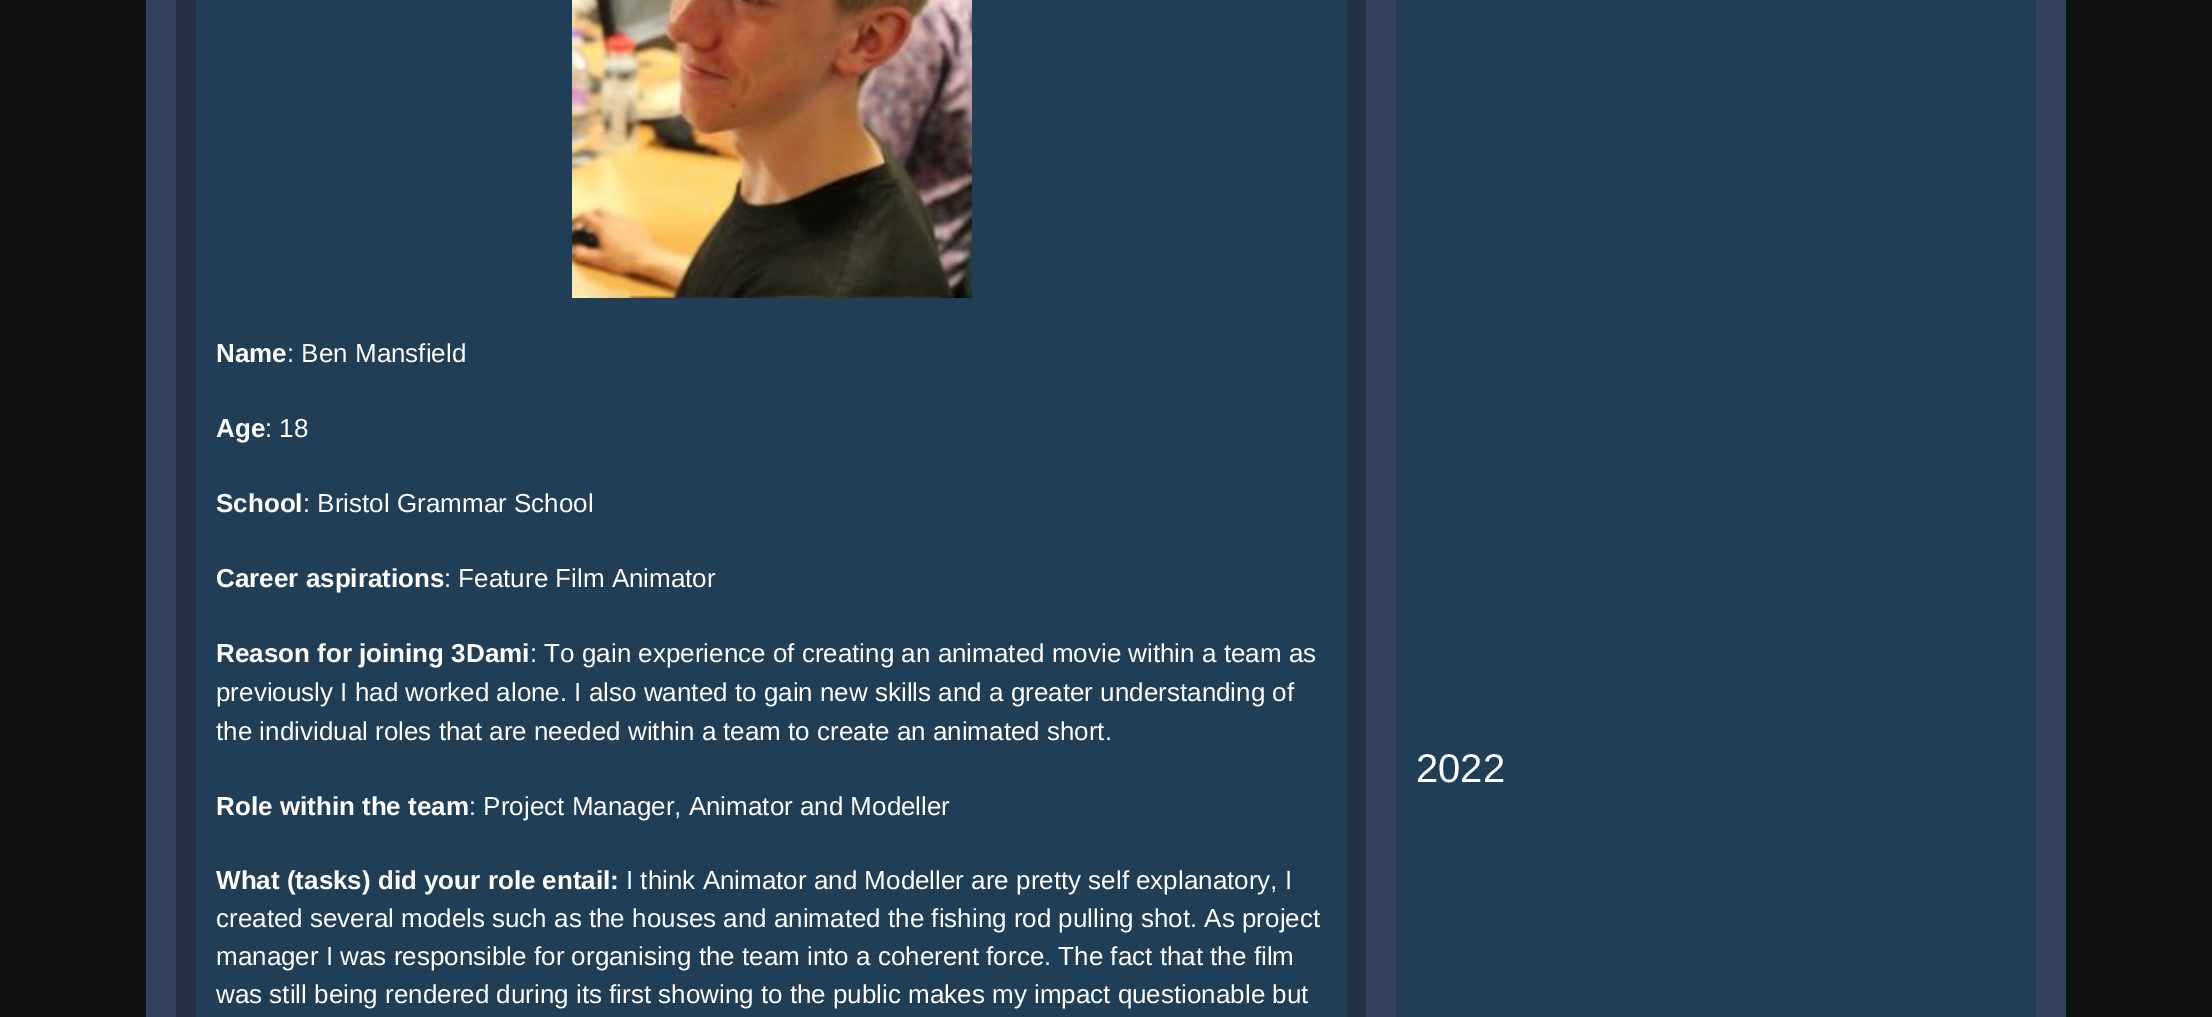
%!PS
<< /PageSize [2212 1017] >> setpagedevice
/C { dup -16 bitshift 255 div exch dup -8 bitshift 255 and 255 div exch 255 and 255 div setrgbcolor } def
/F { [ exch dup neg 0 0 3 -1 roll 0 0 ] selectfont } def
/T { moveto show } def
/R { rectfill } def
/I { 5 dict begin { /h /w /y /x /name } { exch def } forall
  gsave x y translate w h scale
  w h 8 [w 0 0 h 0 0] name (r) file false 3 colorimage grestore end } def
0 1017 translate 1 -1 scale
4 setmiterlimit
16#101010 C
0 0 2212 1017 R
16#33435F C
146 0 1920 1017 R
16#253144 C
176 0 1190 1017 R
16#213E57 C
196 0 1150 1017 R
(1.rgb) 572 0 400 298 I
/LiberationSans-Bold 26 F
16#FFFFFF C
(Name) 216 362 T
/LiberationSans-Regular 26 F
(: Ben Mansfield) 287 362 T
/LiberationSans-Bold 26 F
(Age) 216 437 T
/LiberationSans-Regular 26 F
(: 18) 265 437 T
/LiberationSans-Bold 26 F
(School) 216 512 T
/LiberationSans-Regular 26 F
(: Bristol Grammar School) 303 512 T
/LiberationSans-Bold 26 F
(Career aspirations) 216 587 T
/LiberationSans-Regular 26 F
(: Feature Film Animator) 444 587 T
/LiberationSans-Bold 26 F
(Reason for joining 3Dami) 216 662 T
/LiberationSans-Regular 26 F
(: To gain experience of creating an animated movie within a team as) 530 662 T
(previously I had worked alone. I also wanted to gain new skills and a greater understanding of) 216 701 T
(the individual roles that are needed within a team to create an animated short.) 216 740 T
/LiberationSans-Bold 26 F
(Role within the team) 216 815 T
/LiberationSans-Regular 26 F
(: Project Manager, Animator and Modeller) 469 815 T
/LiberationSans-Bold 26 F
(What \(tasks\) did your role entail:) 216 889 T
/LiberationSans-Regular 26 F
(I think Animator and Modeller are pretty self explanatory, I) 626 889 T
(created several models such as the houses and animated the fishing rod pulling shot. As project) 216 927 T
(manager I was responsible for organising the team into a coherent force. The fact that the film) 216 965 T
(was still being rendered during its first showing to the public makes my impact questionable but) 216 1003 T
16#213E57 C
1396 0 640 1017 R
/LiberationSans-Regular 40 F
16#FFFFFF C
(2022) 1416 782 T
showpage
